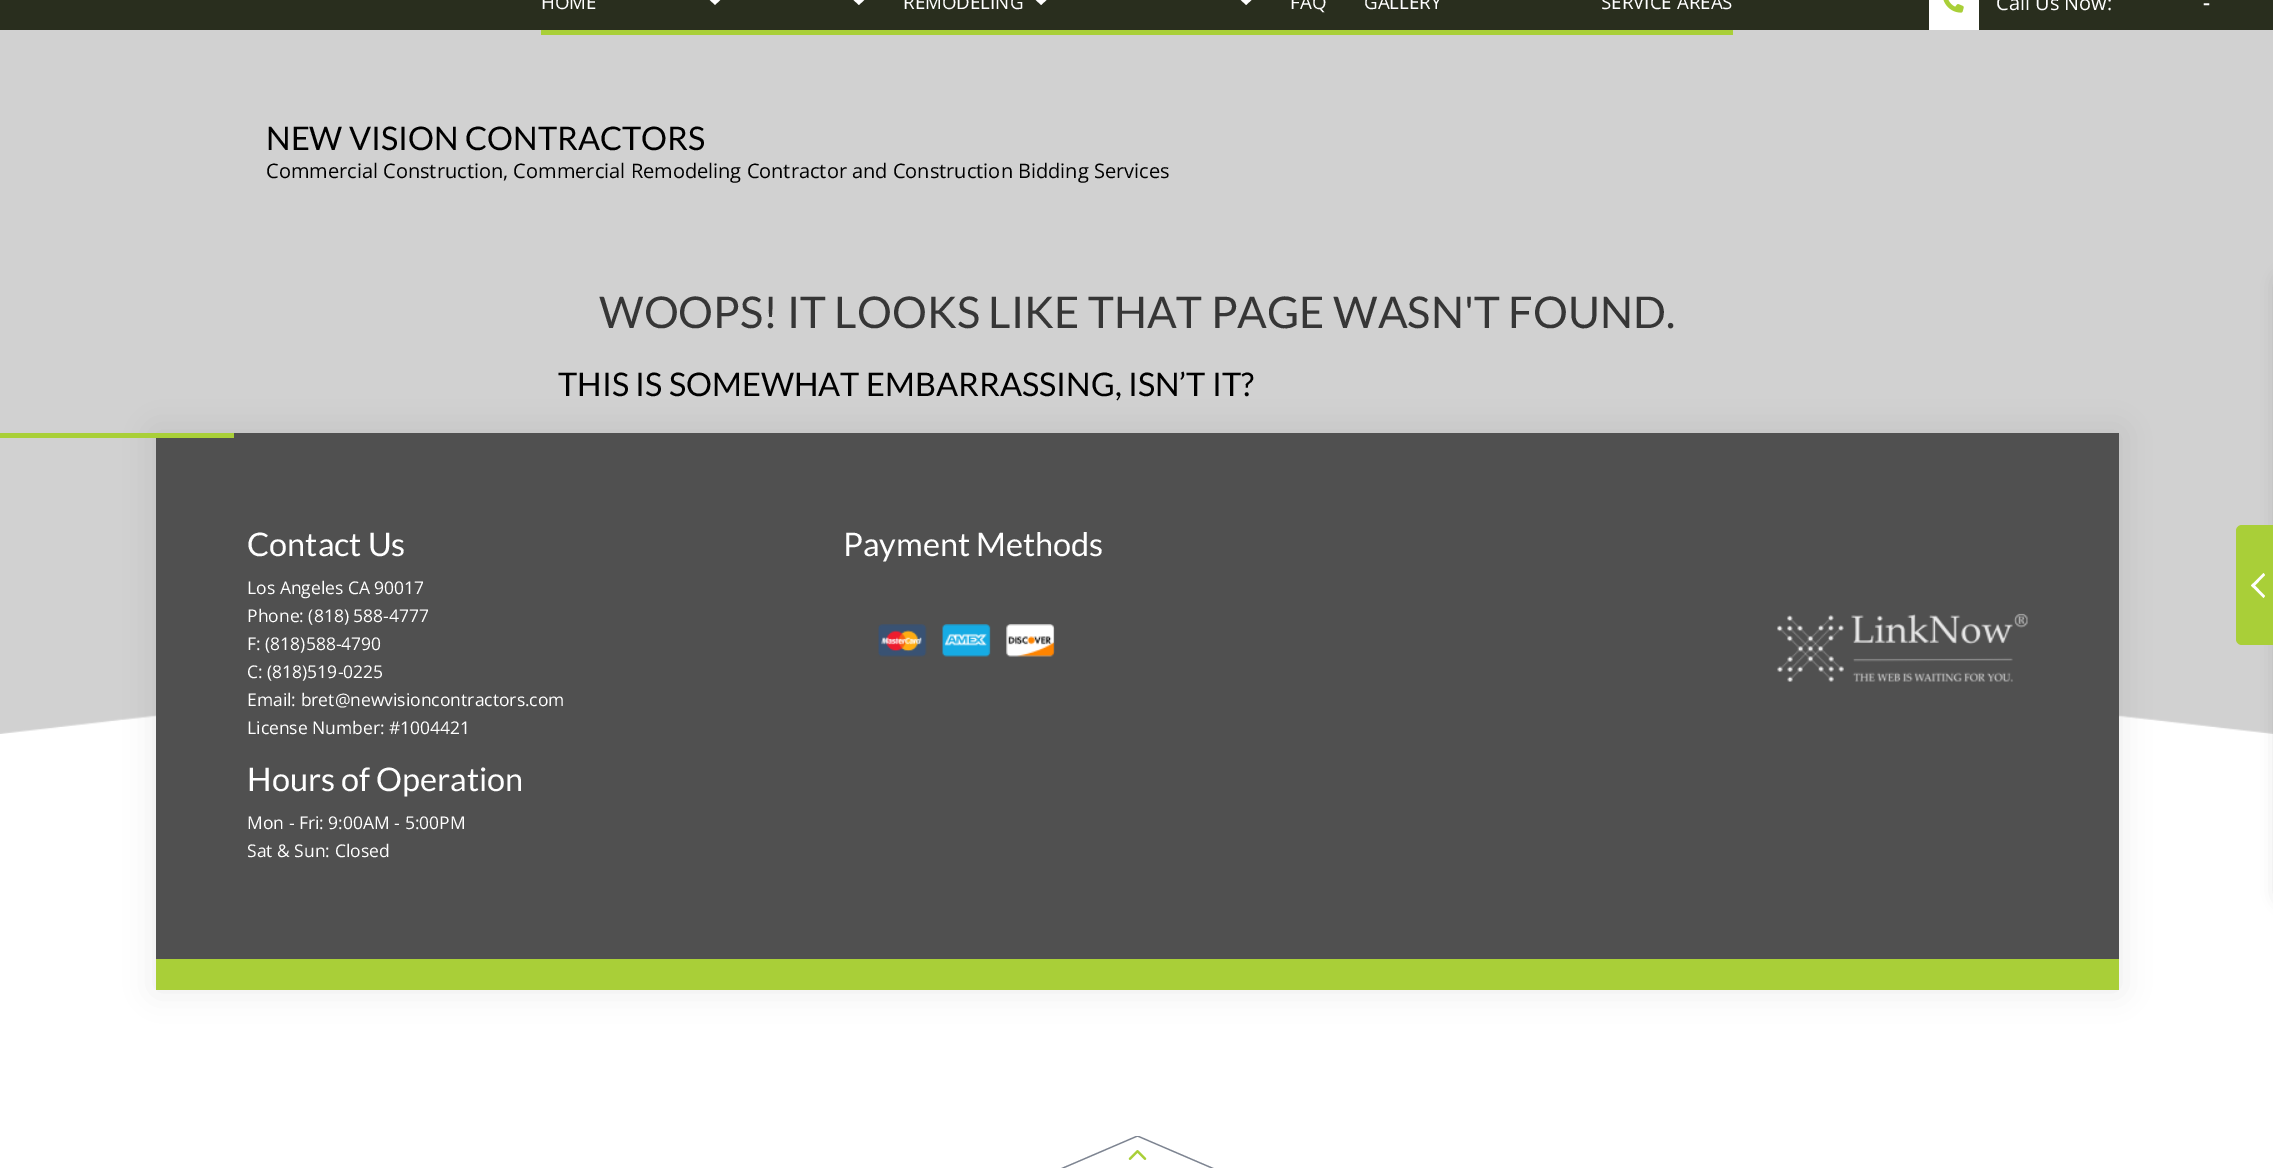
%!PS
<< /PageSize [2273 1168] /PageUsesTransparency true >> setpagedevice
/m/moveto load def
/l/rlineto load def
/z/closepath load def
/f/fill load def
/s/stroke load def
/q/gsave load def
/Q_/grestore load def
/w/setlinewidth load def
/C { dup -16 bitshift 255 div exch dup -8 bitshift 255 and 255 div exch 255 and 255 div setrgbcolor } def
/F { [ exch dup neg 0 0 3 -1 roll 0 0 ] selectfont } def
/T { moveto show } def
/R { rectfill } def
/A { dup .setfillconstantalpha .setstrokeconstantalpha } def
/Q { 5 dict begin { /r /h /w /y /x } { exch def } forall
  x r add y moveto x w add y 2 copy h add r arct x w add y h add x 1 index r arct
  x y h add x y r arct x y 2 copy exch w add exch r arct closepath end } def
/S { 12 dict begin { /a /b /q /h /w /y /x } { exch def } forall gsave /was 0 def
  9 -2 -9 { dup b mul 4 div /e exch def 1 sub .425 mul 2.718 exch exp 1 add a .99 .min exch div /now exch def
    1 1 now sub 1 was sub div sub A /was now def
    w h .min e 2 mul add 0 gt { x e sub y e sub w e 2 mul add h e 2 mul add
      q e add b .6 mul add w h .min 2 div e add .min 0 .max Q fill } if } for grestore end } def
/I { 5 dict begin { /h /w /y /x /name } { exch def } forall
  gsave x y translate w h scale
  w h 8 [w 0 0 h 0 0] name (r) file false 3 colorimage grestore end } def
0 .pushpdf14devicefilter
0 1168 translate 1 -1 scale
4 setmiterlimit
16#FFFFFF C
0 0 2273 1168 R
(1.rgb) 0 30 2273 704 I
16#292E1E C
0 0 2273 30 R
/OpenSans-Regular 18.75 F
16#FFFFFF C
(HOME) 541 9 T
709 -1 m 12 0 l -6 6 l z f
852.5 -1 m 12.5 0 l -6 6 l z f
(REMODELING) 903 9 T
1035 -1 m 12.5 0 l -6.5 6 l z f
1240 -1 m 12.5 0 l -6.5 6 l z f
(FAQ) 1290 9 T
(GALLERY) 1364 9 T
(SERVICE AREAS) 1601 9 T
16#A9CF38 C
541 30 1192 5 R
16#FFFFFF C
1929 0 50 30 R
(2.rgb) 1943 0 21 13 I
/OpenSans-Regular 20 F
(Call Us Now:) 1996 10 T
/OpenSans-Bold 20 F
(-) 2203 10 T
/Lato-Regular 32.5 F
16#000000 C
(NEW VISION CONTRACTORS) 266 150 T
/OpenSans-Regular 20 F
(Commercial Construction, Commercial Remodeling Contractor and Construction Bidding Services) 266 178 T
/Lato-Regular 43.75 F
16#363636 C
(WOOPS! IT LOOKS LIKE THAT PAGE WASN'T FOUND.) 599 328 T
16#000000 C
156 433 1963 557 0 15 .08 S
/Lato-Regular 32.5 F
(THIS IS SOMEWHAT EMBARRASSING, ISN’T IT?) 558 396 T
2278 274 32 630 13 8 .17 S
16#A9CF38 C
2236 525 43 120 6 Q f
16#FFFFFF C
2251 585.5 m 12.5 -12.5 l 1.5 2 l -12 12.5 l z f
2251 585.5 m 2 -2 l 12 12.5 l -1.5 2 l z f
16#505050 C
156 433 1963 526 R
16#A9CF38 C
0 433 234 5 R
156 959 1963 31 R
16#FFFFFF C
(Contact Us) 247 556 T
/OpenSans-Regular 17.5 F
(Los Angeles CA 90017) 247 594 T
(Phone: \(818\) 588-4777) 247 622 T
(F: \(818\)588-4790) 247 650 T
(C: \(818\)519-0225) 247 678 T
(Email: bret@newvisioncontractors.com) 247 706 T
(License Number: #1004421) 247 734 T
/Lato-Regular 32.5 F
(Hours of Operation) 247 791 T
/OpenSans-Regular 17.5 F
(Mon - Fri: 9:00AM - 5:00PM) 247 829 T
(Sat & Sun: Closed) 247 857 T
/Lato-Regular 32.5 F
(Payment Methods) 843 556 T
(3.rgb) 878 624 49 33 I
(4.rgb) 942 624 49 33 I
(5.rgb) 1006 624 49 33 I
(6.rgb) 1777 613 251 69 I
q
1056 1136 163 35 rectclip
16#7D8491 C
1.2 w
1056 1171 m 81.5 -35 l 81.5 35 l s
Q_
(7.rgb) 1128 1150 19 10 I
.poppdf14devicefilter showpage
